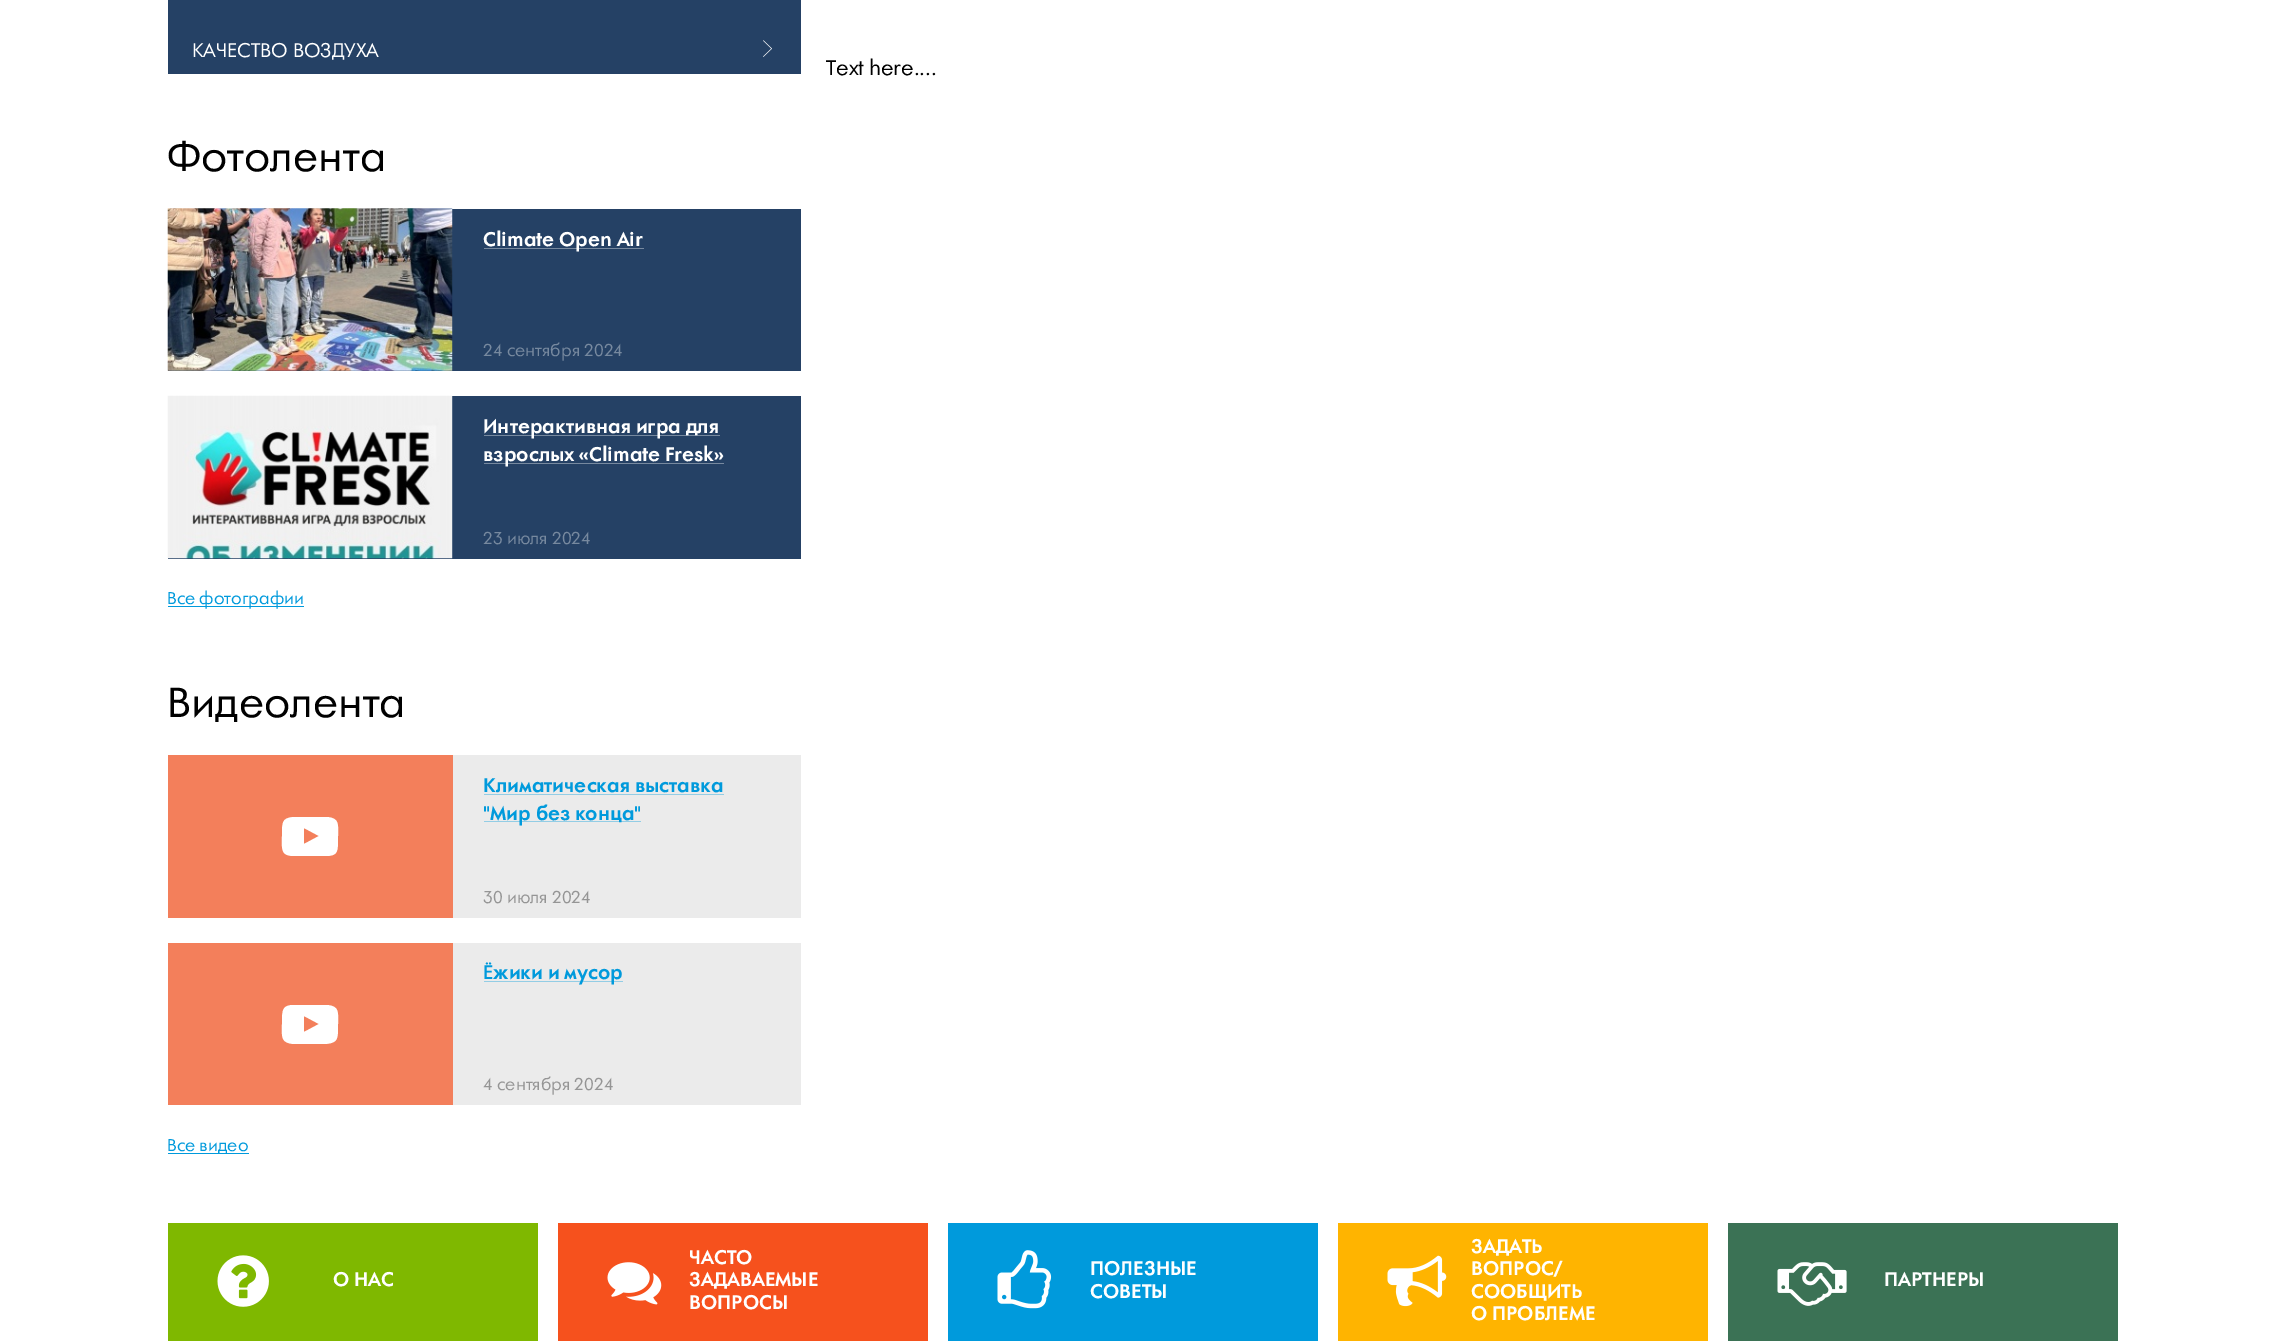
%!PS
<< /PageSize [2285 1341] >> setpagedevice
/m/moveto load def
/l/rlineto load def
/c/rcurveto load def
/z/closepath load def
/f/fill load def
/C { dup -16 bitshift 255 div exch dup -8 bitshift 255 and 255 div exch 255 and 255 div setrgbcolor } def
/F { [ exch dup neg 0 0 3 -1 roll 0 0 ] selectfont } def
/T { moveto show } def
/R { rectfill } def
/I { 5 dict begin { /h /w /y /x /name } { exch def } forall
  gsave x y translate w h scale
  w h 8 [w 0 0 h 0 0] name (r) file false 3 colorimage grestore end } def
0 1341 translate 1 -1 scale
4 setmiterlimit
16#FFFFFF C
0 0 2285 1341 R
16#254165 C
168 0 633 74 R
/Futura-Regular 18.75 F
16#FFFFFF C
(КАЧЕСТВО ВОЗДУХА) 192 57 T
(1.rgb) 763 40 9 17 I
/Futura-Regular 40 F
16#000000 C
(Фотолента) 167 171 T
16#254165 C
168 209 633 162 R
(2.rgb) 167 208 286 163 I
16#77899F C
484 248 160 1 R
/Futura-Bold 18.75 F
16#FFFFFF C
(Climate Open Air) 483 246 T
/Futura-Regular 16.25 F
16#77899F C
(24 сентября 2024) 483 356 T
16#254165 C
168 396 633 163 R
(3.rgb) 167 395 286 164 I
16#77899F C
484 435 236 1 R
/Futura-Bold 18.75 F
16#FFFFFF C
(Интерактивная игра для) 483 433 T
16#77899F C
484 463 240 1 R
16#FFFFFF C
(взрослых «Climate Fresk») 483 461 T
/Futura-Regular 16.25 F
16#77899F C
(23 июля 2024) 483 544 T
16#009ADC C
168 606 136 1 R
(Все фотографии) 167 604 T
/Futura-Regular 40 F
16#000000 C
(Видеолента) 167 717 T
16#EBEBEB C
453 755 348 163 R
16#F37F5B C
168 755 285 163 R
16#FFFFFF C
304 844 m 15 -8 l -15 -8 l z 310 817 m 17 0 l 13 1 11 8 11 20 c 0 15 0 19 -13 19 c -31 0 l -14 0 -12 -8 -12 -20 c 0 -14 0 -18 12 -19 c z f
/Futura-Bold 18.75 F
16#009ADC C
(Климатическая выставка) 483 792 T
16#93CDE5 C
484 794 240 1 R
484 821 157 1 R
16#009ADC C
("Мир без конца") 483 820 T
/Futura-Regular 16.25 F
16#959595 C
(30 июля 2024) 483 903 T
16#EBEBEB C
453 943 348 162 R
16#F37F5B C
168 943 285 162 R
16#FFFFFF C
304 1032 m 15 -8 l -15 -8 l z 310 1005 m 17 0 l 13 1 11 8 11 20 c 0 14 0 18 -13 19 c -31 0 l -14 -1 -12 -8 -12 -20 c 0 -14 0 -19 12 -19 c z f
16#93CDE5 C
484 981 139 1 R
/Futura-Bold 18.75 F
16#009ADC C
(Ёжики и мусор) 483 979 T
/Futura-Regular 16.25 F
16#959595 C
(4 сентября 2024) 483 1090 T
16#009ADC C
168 1153 81 1 R
(Все видео) 167 1151 T
/Futura-Regular 20 F
16#000000 C
(Text here....) 826 75 T
16#7FB800 C
168 1223 370 118 R
(4.rgb) 217 1255 52 52 I
/Futura-Bold 18.75 F
16#FFFFFF C
(О НАС) 333 1286 T
16#F6511D C
558 1223 370 118 R
(5.rgb) 607 1262 55 43 I
16#FFFFFF C
(ЧАСТО) 689 1264 T
(ЗАДАВАЕМЫЕ) 689 1286 T
(ВОПРОСЫ) 689 1309 T
16#009ADC C
948 1223 370 118 R
(6.rgb) 997 1250 55 59 I
16#FFFFFF C
(ПОЛЕЗНЫЕ) 1090 1275 T
(СОВЕТЫ) 1090 1298 T
16#FFB400 C
1338 1223 370 118 R
(7.rgb) 1387 1255 60 52 I
16#FFFFFF C
(ЗАДАТЬ) 1471 1253 T
(ВОПРОС/) 1471 1275 T
(СООБЩИТЬ) 1471 1298 T
(О ПРОБЛЕМЕ) 1471 1320 T
16#3B7255 C
1728 1223 390 118 R
(8.rgb) 1777 1262 70 44 I
16#FFFFFF C
(ПАРТНЕРЫ) 1884 1286 T
showpage
